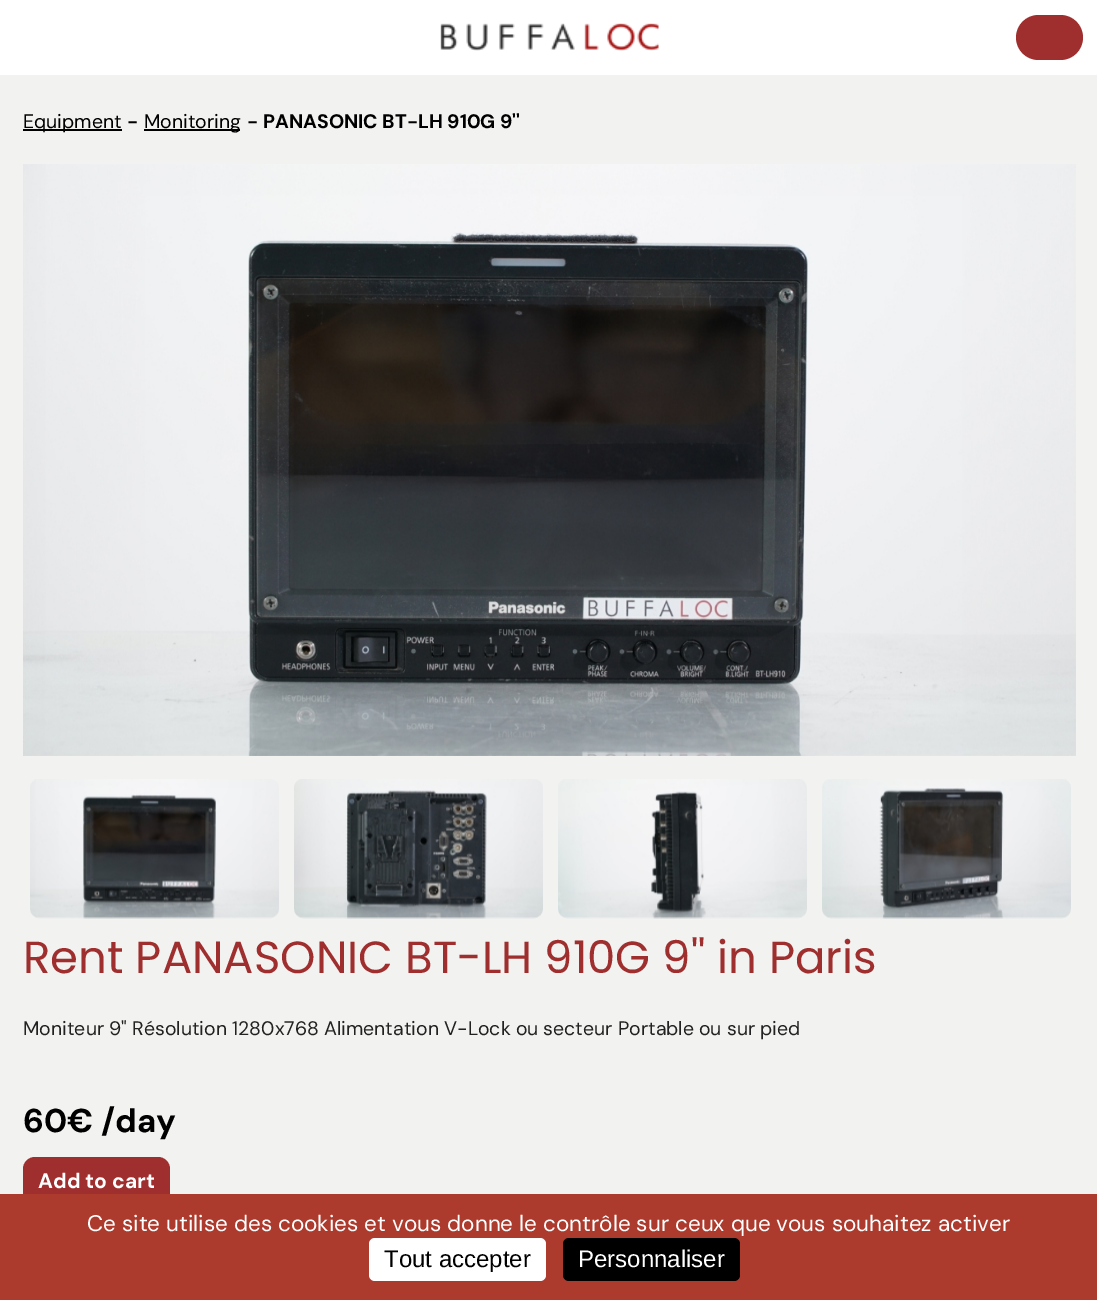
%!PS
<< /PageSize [1097 1300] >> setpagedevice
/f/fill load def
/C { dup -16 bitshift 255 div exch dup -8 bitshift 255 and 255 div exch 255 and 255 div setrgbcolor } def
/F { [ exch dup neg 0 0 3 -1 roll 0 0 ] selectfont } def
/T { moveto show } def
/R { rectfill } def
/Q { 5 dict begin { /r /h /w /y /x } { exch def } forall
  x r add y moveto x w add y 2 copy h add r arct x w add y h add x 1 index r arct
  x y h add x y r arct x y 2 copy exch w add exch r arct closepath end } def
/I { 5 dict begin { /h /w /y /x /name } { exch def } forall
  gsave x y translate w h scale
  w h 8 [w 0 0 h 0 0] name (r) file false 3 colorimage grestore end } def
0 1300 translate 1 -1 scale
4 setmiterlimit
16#F2F2F0 C
0 0 1097 1300 R
16#FFFFFF C
0 0 1097 75 R
(1.rgb) 440 23 219 28 I
16#9F2E2E C
1016 15 67 45 22.5 Q f
16#000000 C
23 129 99 2 R
/DMSans-Regular 19.5 F
(Equipment) 23 128 T
/DMSans-Bold 19.5 F
(-) 127 128 T
144 129 96 2 R
/DMSans-Regular 19.5 F
(Monitoring) 144 128 T
/DMSans-Bold 19.5 F
(-) 247 128 T
(PANASONIC BT-LH 910G 9'') 263 128 T
(2.rgb) 23 164 1053 592 I
(3.rgb) 30 779 249 140 I
(4.rgb) 294 779 249 140 I
(5.rgb) 558 779 249 140 I
(6.rgb) 822 779 249 140 I
/Poppins-Regular 45 F
16#9F2E2E C
(Rent PANASONIC BT-LH 910G 9'' in Paris) 23 973 T
/DMSans-Regular 19.5 F
16#222222 C
(Moniteur 9" Résolution 1280x768 Alimentation V-Lock ou secteur Portable ou sur pied) 23 1035 T
/DMSans-Bold 33 F
16#000000 C
(60€ /day) 23 1132 T
16#9F2E2E C
23 1157 147 49 12 Q f
/DMSans-Bold 21 F
16#FFFFFF C
(Add to cart) 38 1188 T
16#AC3B2D C
0 1194 1097 106 R
/DMSans-Regular 22.5 F
16#FFFFFF C
(Ce site utilise des cookies et vous donne le contrôle sur ceux que vous souhaitez activer) 87 1231 T
369 1238 177 43 6 Q f
/LiberationSans-Regular 24 F
16#000000 C
(Tout accepter) 384 1267 T
563 1238 177 43 6 Q f
16#FFFFFF C
(Personnaliser) 578 1267 T
showpage
